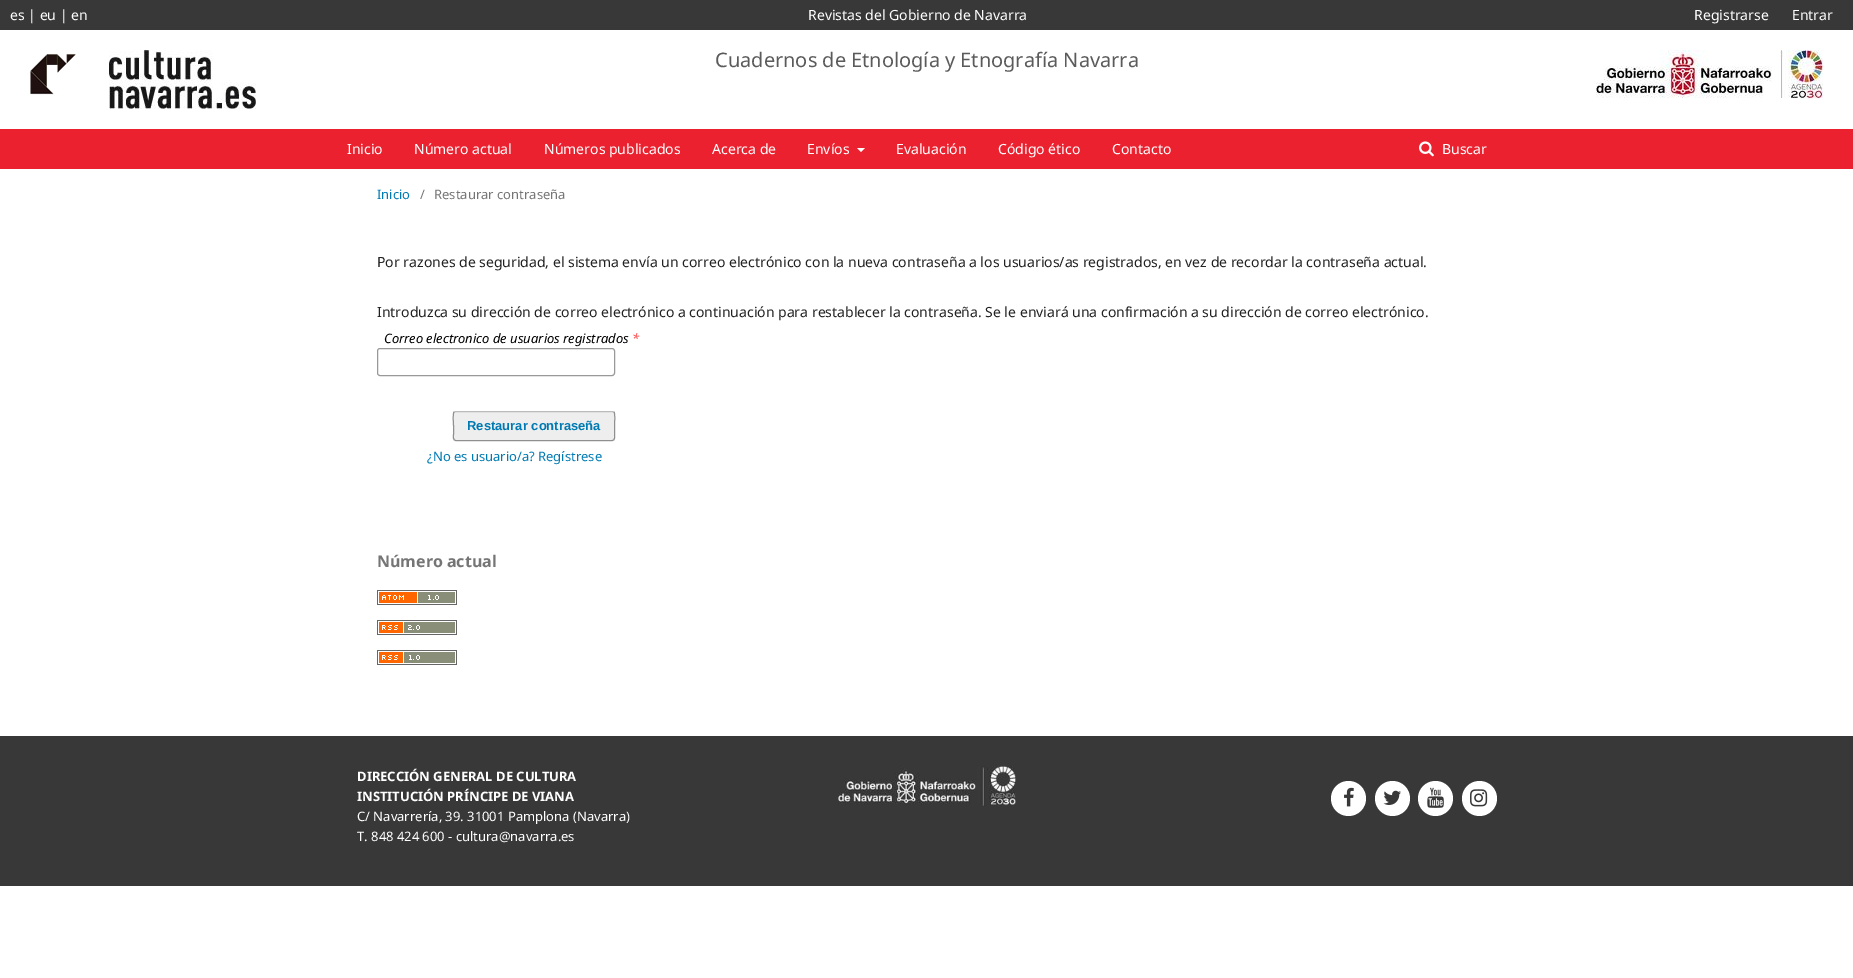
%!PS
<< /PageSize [1853 978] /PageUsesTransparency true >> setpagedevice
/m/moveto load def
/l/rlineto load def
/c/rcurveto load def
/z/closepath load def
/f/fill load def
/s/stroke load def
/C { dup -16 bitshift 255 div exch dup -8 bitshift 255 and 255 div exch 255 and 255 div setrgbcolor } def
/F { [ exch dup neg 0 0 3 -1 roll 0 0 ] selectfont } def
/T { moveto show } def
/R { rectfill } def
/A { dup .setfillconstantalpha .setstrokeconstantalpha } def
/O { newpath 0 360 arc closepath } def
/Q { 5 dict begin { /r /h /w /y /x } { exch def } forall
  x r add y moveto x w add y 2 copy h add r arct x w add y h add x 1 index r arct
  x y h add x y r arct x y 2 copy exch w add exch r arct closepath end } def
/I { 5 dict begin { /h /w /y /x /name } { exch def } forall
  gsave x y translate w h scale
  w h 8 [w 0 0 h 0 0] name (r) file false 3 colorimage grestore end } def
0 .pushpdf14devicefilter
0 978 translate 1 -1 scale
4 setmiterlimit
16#FFFFFF C
0 0 1853 978 R
16#383838 C
0 0 1853 30 R
/NotoSans-Regular 14 F
16#FFFFFF C
(es | eu | en) 10 20 T
(Revistas del Gobierno de Navarra) 808 20 T
(Registrarse) 1694 20 T
(Entrar) 1792 20 T
(1.rgb) 30 54 46 41 I
(2.rgb) 109 50 147 59 I
/NotoSans-Regular 20 F
16#5C5B5C C
(Cuadernos de Etnología y Etnografía Navarra) 715 67 T
(3.rgb) 1596 50 227 49 I
16#EB212F C
0 129 1853 40 R
/NotoSans-Regular 14 F
16#FFFFFF C
(Inicio) 347 154 T
(Número actual) 414 154 T
(Números publicados) 544 154 T
(Acerca de) 712 154 T
(Envíos) 807 154 T
857 148 m 8 0 l -4 4 l z f
(Evaluación) 896 154 T
(Código ético) 998 154 T
(Contacto) 1112 154 T
(4.rgb) 1419 141 15 16 I
(Buscar) 1442 154 T
/NotoSans-Regular 13 F
16#007AB2 C
(Inicio) 377 199 T
16#757575 C
(/) 420 199 T
(Restaurar contraseña) 434 199 T
/NotoSans-Regular 14 F
16#212121 C
(Por razones de seguridad, el sistema envía un correo electrónico con la nueva contraseña a los usuarios/as registrados, en vez de recordar la contraseña actual.) 377 267 T
(Introduzca su dirección de correo electrónico a continuación para restablecer la contraseña. Se le enviará una confirmación a su dirección de correo electrónico.) 377 317 T
/NotoSans-Italic 13 F
16#000000 C
(Correo electronico de usuarios registrados) 384 343 T
16#FF4040 C
(*) 632 343 T
16#999999 C
377.5 348.5 237 27 2.5 Q s
16#EEEEEE C
453 411 162 30 3 Q f
16#BBBBBB C
454 412 m 2 -.5 l 156 0 l 2 .5 l s
0.4 A
16#000000 C
614 412 m 1.5 2 .5 11.5 .5 14 c 0 8 l 0 2 1 6.5 -2.5 6.5 c -156 0 l -3.5 0 -2.5 -4.5 -2.5 -6.5 c 0 -8 l 0 -2.5 -1 -12 .5 -14 c s
/LiberationSans-Bold 13 F
1 A
16#007AB2 C
(Restaurar contraseña) 467 430 T
/NotoSans-Regular 13 F
(¿No es usuario/a? Regístrese) 427 461 T
/NotoSans-Bold 16 F
16#757575 C
(Número actual) 377 567 T
(5.rgb) 377 590 80 15 I
(6.rgb) 377 620 80 15 I
(7.rgb) 377 650 80 15 I
16#383838 C
0 736 1853 150 R
/NotoSans-Bold 13 F
16#FFFFFF C
(DIRECCIÓN GENERAL DE CULTURA) 357 781 T
(INSTITUCIÓN PRÍNCIPE DE VIANA) 357 801 T
/NotoSans-Regular 13 F
(C/ Navarrería, 39. 31001 Pamplona \(Navarra\)) 357 821 T
(T. 848 424 600 - cultura@navarra.es) 357 841 T
(8.rgb) 838 766 178 40 I
1348.5 798.5 17.5 O f
(9.rgb) 1344 787 10 20 I
1392.5 798.5 17.5 O f
(10.rgb) 1383 790 18 15 I
1435.5 798.5 17.5 O f
(11.rgb) 1427 787 17 21 I
1479.5 798.5 17.5 O f
(12.rgb) 1470 789 18 18 I
.poppdf14devicefilter showpage
